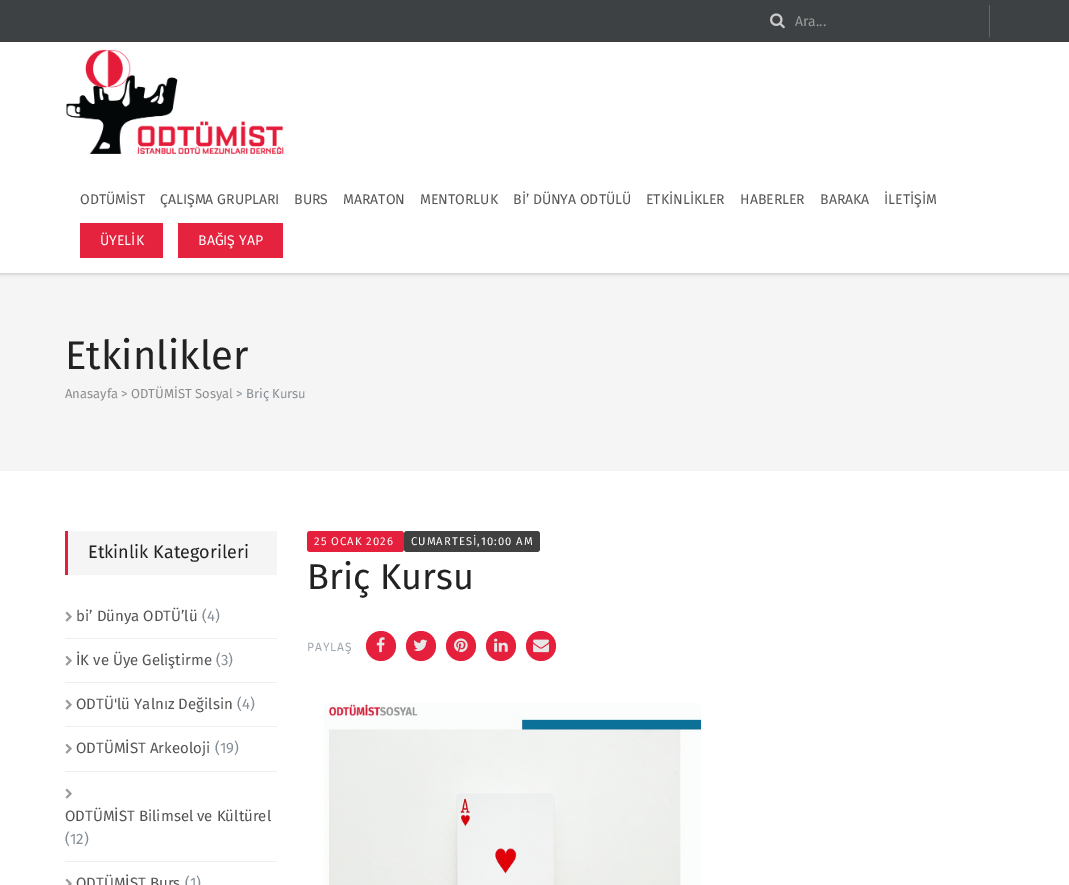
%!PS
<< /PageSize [1069 885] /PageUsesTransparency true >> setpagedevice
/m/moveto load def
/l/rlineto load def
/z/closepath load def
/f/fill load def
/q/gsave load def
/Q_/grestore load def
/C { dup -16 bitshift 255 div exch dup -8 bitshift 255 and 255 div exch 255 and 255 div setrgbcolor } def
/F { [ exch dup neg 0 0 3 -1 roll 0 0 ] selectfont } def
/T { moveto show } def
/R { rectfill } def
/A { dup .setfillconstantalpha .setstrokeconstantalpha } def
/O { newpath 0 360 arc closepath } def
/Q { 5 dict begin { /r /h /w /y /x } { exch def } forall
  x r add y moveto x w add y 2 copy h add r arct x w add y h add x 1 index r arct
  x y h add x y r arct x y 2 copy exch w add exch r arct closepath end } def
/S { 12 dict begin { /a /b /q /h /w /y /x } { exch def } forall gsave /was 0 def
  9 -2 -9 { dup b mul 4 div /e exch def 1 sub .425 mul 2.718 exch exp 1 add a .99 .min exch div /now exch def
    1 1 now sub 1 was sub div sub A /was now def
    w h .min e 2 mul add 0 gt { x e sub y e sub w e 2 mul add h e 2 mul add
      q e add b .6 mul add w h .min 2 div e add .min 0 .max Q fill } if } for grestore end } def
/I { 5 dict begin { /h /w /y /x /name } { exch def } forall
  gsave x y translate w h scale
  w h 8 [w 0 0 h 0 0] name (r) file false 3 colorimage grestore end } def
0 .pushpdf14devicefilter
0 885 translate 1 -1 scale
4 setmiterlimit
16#FFFFFF C
0 0 1069 885 R
16#3D4143 C
0 0 1069 42 R
16#646769 C
989 5 1 32 R
(1.rgb) 770 13 15 16 I
/FiraSans-Regular 14 F
16#999999 C
(Ara...) 795 26 T
16#F5F5F5 C
0 273 1069 197 R
q
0 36 m 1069 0 l 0 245 l -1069 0 l z 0 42 m 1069 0 l 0 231 l -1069 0 l z eoclip newpath
16#000000 C
0 43 1069 231 0 2 .2 S
Q_
(2.rgb) 66 49 218 105 I
16#555555 C
(ODTÜMİST) 80 204 T
(ÇALIŞMA GRUPLARI) 160 204 T
(BURS) 294 204 T
(MARATON) 343 204 T
(MENTORLUK) 420 204 T
(Bİ’ DÜNYA ODTÜLÜ) 513 204 T
(ETKİNLİKLER) 646 204 T
(HABERLER) 740 204 T
(BARAKA) 820 204 T
(İLETİŞİM) 884 204 T
16#E5233F C
80 223 83 35 R
16#FFFFFF C
(ÜYELİK) 100 245 T
16#E5233F C
178 223 105 35 R
16#FFFFFF C
(BAĞIŞ YAP) 198 245 T
16#F2F2F2 C
0 470 1069 1 R
/FiraSans-Regular 40 F
16#222222 C
(Etkinlikler) 65 369 T
/FiraSans-Regular 13 F
16#8B8B8B C
(Anasayfa) 65 398 T
16#858E97 C
(>) 121 398 T
16#8B8B8B C
(ODTÜMİST Sosyal) 131 398 T
16#858E97 C
(> Briç Kursu) 236 398 T
16#F5F5F5 C
68 531 209 44 R
16#E5203C C
65 531 3 44 R
/FiraSans-Regular 18 F
16#222222 C
(Etkinlik Kategorileri) 88 558 T
16#EEEEEE C
65 638 212 1 R
(3.rgb) 65 611 7 11 I
/FiraSans-Regular 15 F
16#555555 C
(bi’ Dünya ODTÜ’lü) 76 621 T
16#858E97 C
(\(4\)) 202 621 T
16#EEEEEE C
65 682 212 1 R
(3.rgb) 65 655 7 11 I
16#555555 C
(İK ve Üye Geliştirme) 76 665 T
16#858E97 C
(\(3\)) 216 665 T
16#EEEEEE C
65 726 212 1 R
(3.rgb) 65 699 7 11 I
16#555555 C
(ODTÜ'lü Yalnız Değilsin) 76 709 T
16#858E97 C
(\(4\)) 237 709 T
16#EEEEEE C
65 771 212 1 R
(3.rgb) 65 743 7 11 I
16#555555 C
(ODTÜMİST Arkeoloji) 76 753 T
16#858E97 C
(\(19\)) 215 753 T
16#EEEEEE C
65 861 212 1 R
(3.rgb) 65 788 7 11 I
16#555555 C
(ODTÜMİST Bilimsel ve Kültürel) 65 821 T
16#858E97 C
(\(12\)) 65 844 T
(4.rgb) 65 878 7 7 I
16#555555 C
(ODTÜMİST Burs) 76 888 T
16#858E97 C
(\(1\)) 185 888 T
16#E5203C C
307 531 97 21 3 Q f
/FiraSans-Regular 11.25 F
16#FFFFFF C
314 545 m 1 0 (25 OCAK 2026) ashow
16#404040 C
404 531 136 21 3 Q f
16#FFFFFF C
411 545 m 1 0 (CUMARTESİ,10:00 AM) ashow
/FiraSans-Regular 36 F
16#222222 C
(Briç Kursu) 307 589 T
/FiraSans-Regular 12 F
16#9DA5AC C
307 651 m 1 0 (PAYLAŞ) ashow
16#E5203C C
381 646 15 O f
(5.rgb) 376 637 9 16 I
421 646 15 O f
(6.rgb) 413 639 15 12 I
461 646 15 O f
(7.rgb) 454 638 14 15 I
501 646 15 O f
(8.rgb) 494 638 14 14 I
541 646 15 O f
(9.rgb) 533 639 16 14 I
(10.rgb) 324 703 377 182 I
.poppdf14devicefilter showpage
